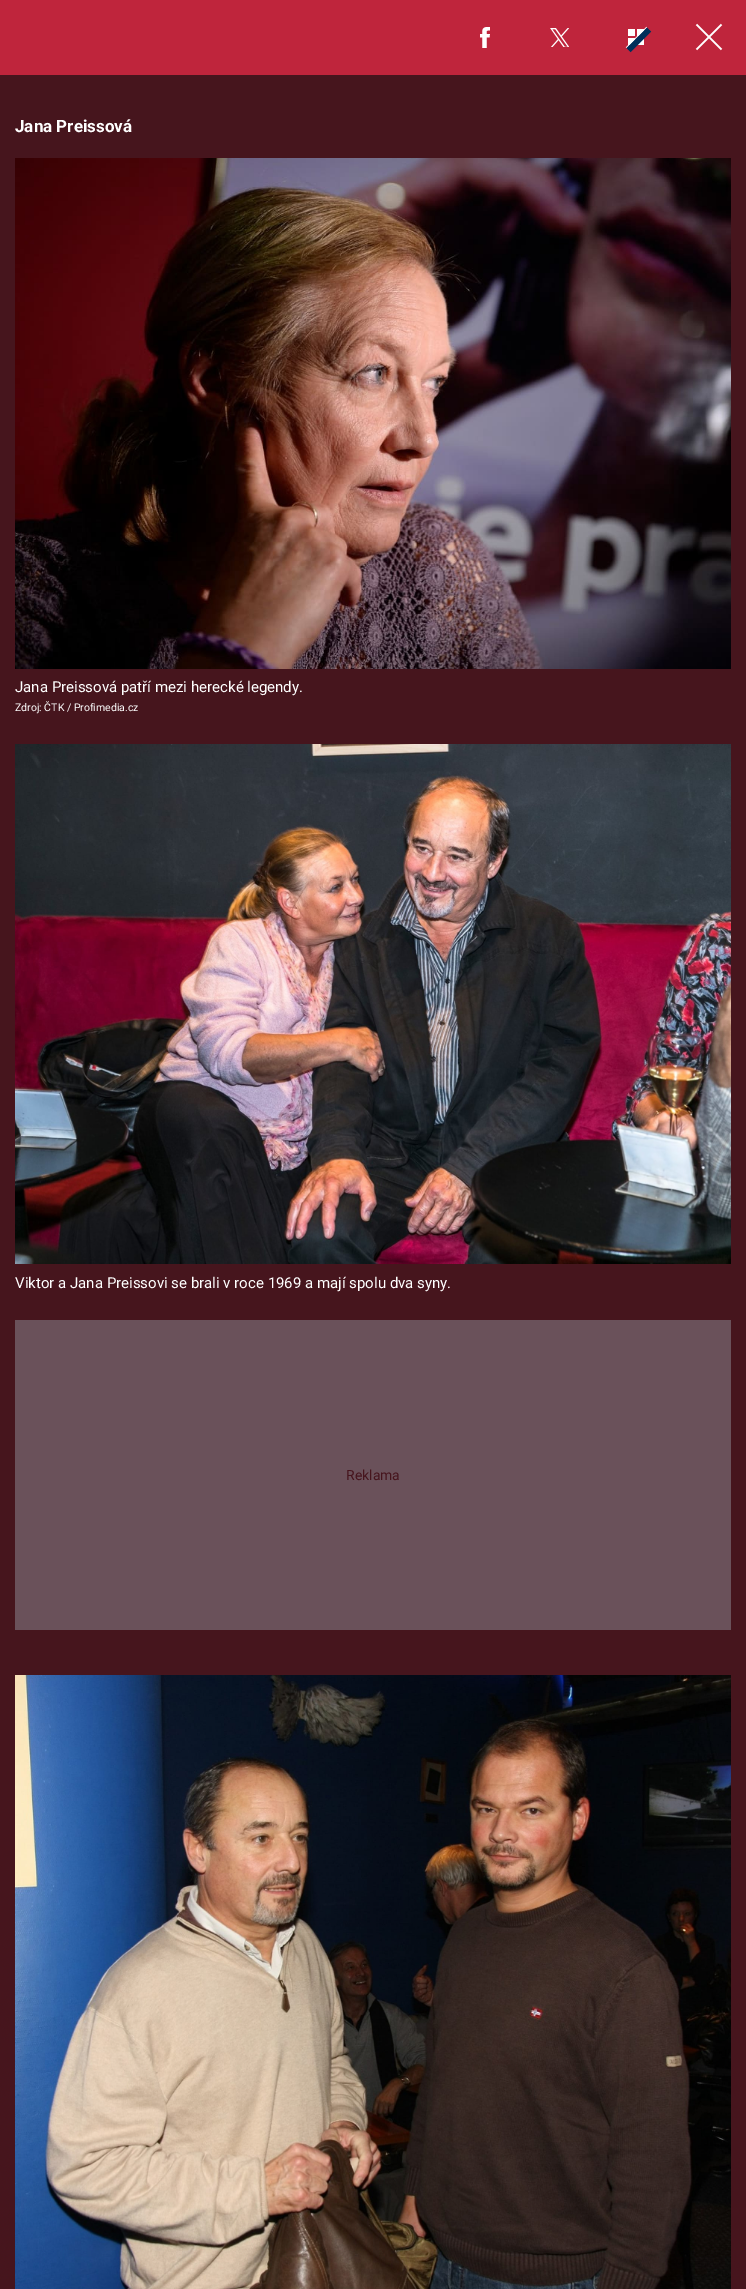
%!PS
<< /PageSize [746 2289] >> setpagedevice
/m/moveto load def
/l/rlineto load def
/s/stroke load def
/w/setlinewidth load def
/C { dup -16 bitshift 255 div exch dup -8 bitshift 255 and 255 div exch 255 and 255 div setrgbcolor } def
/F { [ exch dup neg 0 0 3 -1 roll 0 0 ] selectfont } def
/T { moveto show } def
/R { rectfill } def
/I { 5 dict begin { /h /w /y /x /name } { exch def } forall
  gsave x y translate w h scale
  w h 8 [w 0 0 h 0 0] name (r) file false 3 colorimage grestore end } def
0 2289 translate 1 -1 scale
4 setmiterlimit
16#46151D C
0 0 746 2289 R
16#BF253C C
0 0 746 75 R
(1.rgb) 480 27 10 21 I
(2.rgb) 550 28 19 19 I
(3.rgb) 625 26 27 27 I
16#FFFFFF C
1.5 w
696.5 24.5 m 25 25 l 721.5 24.5 m -25 25 l s
/Roboto-Bold 17 F
(Jana Preissová) 15 132 T
(4.rgb) 15 158 716 511 I
/Roboto-Regular 15 F
(Jana Preissová patří mezi herecké legendy.) 15 692 T
/Roboto-Regular 10.5 F
(Zdroj: ČTK / Profimedia.cz) 15 711 T
(5.rgb) 15 744 716 520 I
/Roboto-Regular 15 F
(Viktor a Jana Preissovi se brali v roce 1969 a mají spolu dva syny.) 15 1288 T
16#6A515A C
15 1320 716 310 R
/Roboto-Regular 14 F
16#46151D C
(Reklama) 346 1480 T
(6.rgb) 15 1675 716 614 I
showpage
